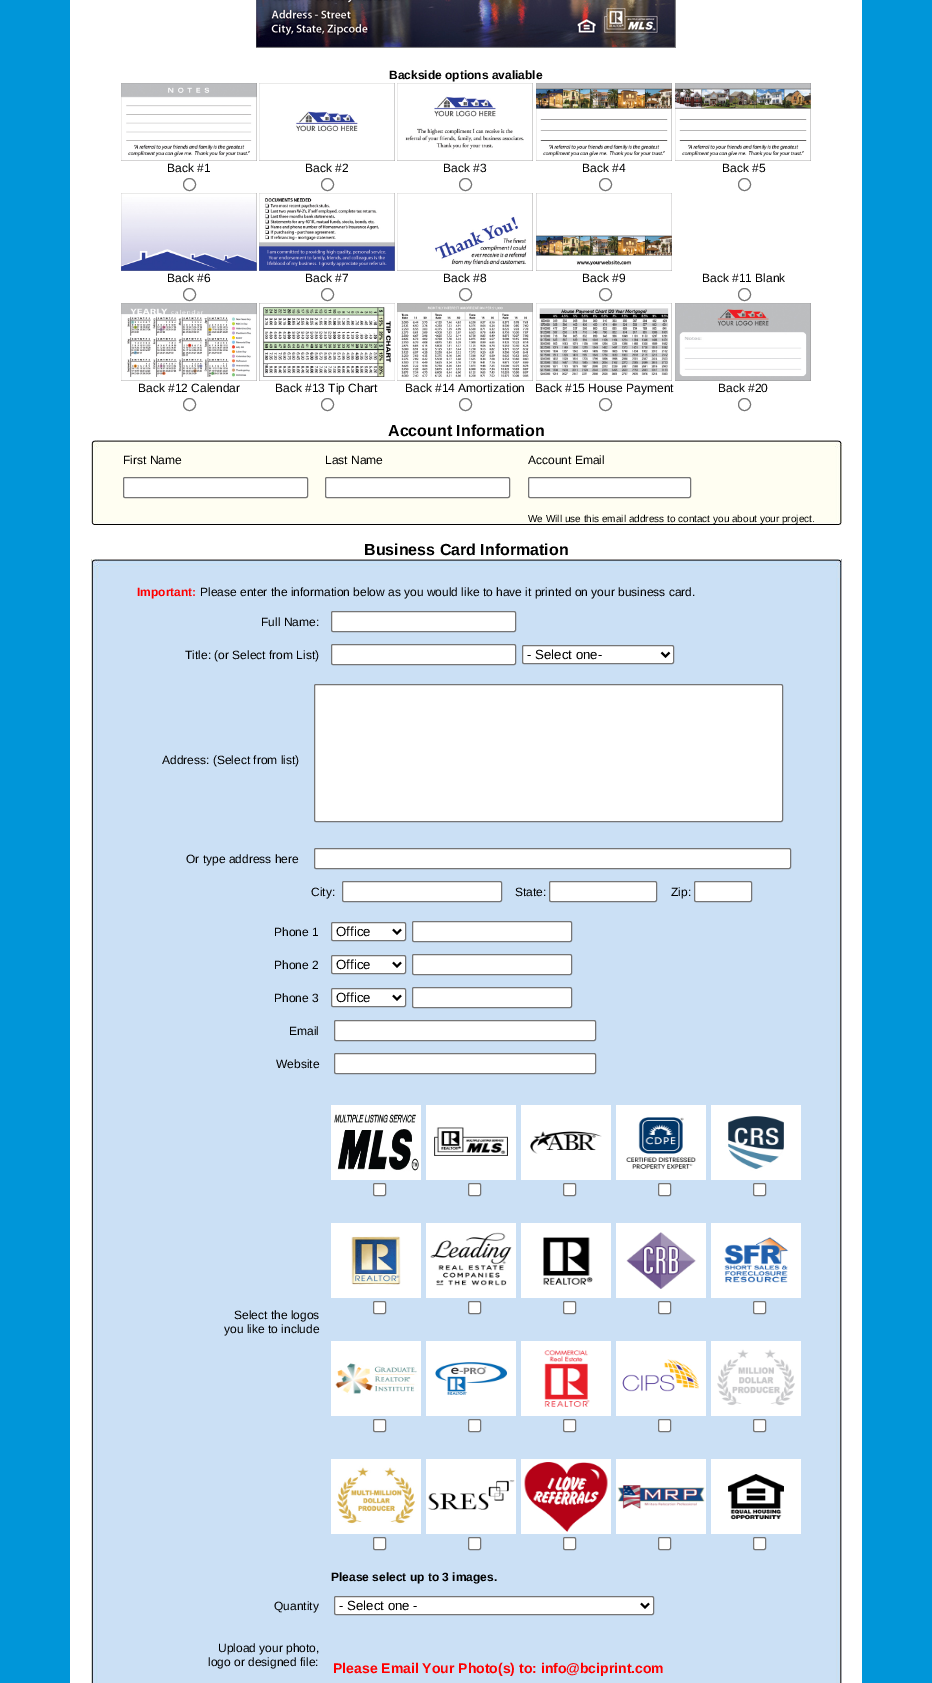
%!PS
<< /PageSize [932 1683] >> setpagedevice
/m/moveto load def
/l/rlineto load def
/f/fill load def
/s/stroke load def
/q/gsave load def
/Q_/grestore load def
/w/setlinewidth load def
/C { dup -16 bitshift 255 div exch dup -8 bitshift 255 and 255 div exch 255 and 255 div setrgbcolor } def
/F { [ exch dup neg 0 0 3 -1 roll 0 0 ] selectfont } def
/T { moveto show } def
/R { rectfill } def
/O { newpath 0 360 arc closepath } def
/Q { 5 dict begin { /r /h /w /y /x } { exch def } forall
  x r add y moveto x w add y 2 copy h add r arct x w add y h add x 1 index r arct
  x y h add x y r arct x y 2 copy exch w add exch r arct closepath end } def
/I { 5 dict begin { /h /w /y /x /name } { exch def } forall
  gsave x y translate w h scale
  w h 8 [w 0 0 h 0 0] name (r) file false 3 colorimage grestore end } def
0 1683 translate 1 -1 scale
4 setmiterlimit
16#0096D9 C
0 0 932 1683 R
16#FFFFFF C
70 0 792 1683 R
(1.rgb) 256 0 420 48 I
/LiberationSans-Bold 12 F
16#000000 C
(Backside options avaliable) 389 79 T
(2.rgb) 121 83 136 78 I
/LiberationSans-Regular 12 F
(Back #1) 167 172 T
16#767676 C
189.5 184.5 6 O s
(3.rgb) 259 83 136 78 I
16#000000 C
(Back #2) 305 172 T
16#767676 C
327.5 184.5 6 O s
(4.rgb) 397 83 136 78 I
16#000000 C
(Back #3) 443 172 T
16#767676 C
465.5 184.5 6 O s
(5.rgb) 536 83 136 78 I
16#000000 C
(Back #4) 582 172 T
16#767676 C
605.5 184.5 6 O s
(6.rgb) 675 83 136 78 I
16#000000 C
(Back #5) 722 172 T
16#767676 C
744.5 184.5 6 O s
(7.rgb) 121 193 136 78 I
16#000000 C
(Back #6) 167 282 T
16#767676 C
189.5 294.5 6 O s
(8.rgb) 259 193 136 78 I
16#000000 C
(Back #7) 305 282 T
16#767676 C
327.5 294.5 6 O s
(9.rgb) 397 193 136 78 I
16#000000 C
(Back #8) 443 282 T
16#767676 C
465.5 294.5 6 O s
(10.rgb) 536 193 136 78 I
16#000000 C
(Back #9) 582 282 T
16#767676 C
605.5 294.5 6 O s
16#000000 C
(Back #11 Blank) 702 282 T
16#767676 C
744.5 294.5 6 O s
(11.rgb) 121 303 136 78 I
16#000000 C
(Back #12 Calendar) 138 392 T
16#767676 C
189.5 404.5 6 O s
(12.rgb) 259 303 136 78 I
16#000000 C
(Back #13 Tip Chart) 275 392 T
16#767676 C
327.5 404.5 6 O s
(13.rgb) 397 303 136 78 I
16#000000 C
(Back #14 Amortization) 405 392 T
16#767676 C
465.5 404.5 6 O s
(14.rgb) 536 303 136 78 I
16#000000 C
(Back #15 House Payment) 535 392 T
16#767676 C
605.5 404.5 6 O s
(15.rgb) 675 303 136 78 I
16#000000 C
(Back #20) 718 392 T
16#767676 C
744.5 404.5 6 O s
/LiberationSans-Bold 16 F
16#000000 C
(Account Information) 388 436 T
(16.rgb) 91 440 751 85 I
/LiberationSans-Regular 12 F
(First Name) 123 464 T
(Last Name) 325 464 T
(Account Email) 528 464 T
16#FFFFFF C
123.5 477.5 184 20 1.5 Q q f Q_
16#767676 C
s
16#FFFFFF C
325.5 477.5 184 20 1.5 Q q f Q_
16#767676 C
s
16#FFFFFF C
528.5 477.5 162 20 1.5 Q q f Q_
16#767676 C
s
/LiberationSans-Regular 10 F
16#000000 C
(We Will use this email address to contact you about your project.) 528 522 T
/LiberationSans-Bold 16 F
(Business Card Information) 364 555 T
(17.rgb) 91 559 751 1124 I
(18.rgb) 92 559 749 19 I
/LiberationSans-Bold 12 F
16#FF0000 C
(Important:) 137 596 T
/LiberationSans-Regular 12 F
16#000000 C
(Please enter the information below as you would like to have it printed on your business card.) 200 596 T
(Full Name:) 261 626 T
16#FFFFFF C
331.5 611.5 184 20 1.5 Q q f Q_
16#767676 C
s
16#000000 C
(Title: \(or Select from List\)) 185 659 T
16#FFFFFF C
331.5 644.5 184 20 1.5 Q q f Q_
16#767676 C
s
16#FFFFFF C
522.5 645.5 151 18 1.5 Q q f Q_
16#767676 C
s
16#000000 C
2 w
661.5 652.5 m 4 4 l 4 -4 l s
/LiberationSans-Regular 13.25 F
(- Select one-) 527 659 T
/LiberationSans-Regular 12 F
(Address: \(Select from list\)) 162 764 T
16#FFFFFF C
314.5 684.5 468 137 1.5 Q q f Q_
16#767676 C
1 w
s
16#000000 C
(Or type address here) 186 863 T
16#FFFFFF C
314.5 848.5 476 20 1.5 Q q f Q_
16#767676 C
s
16#000000 C
(City:) 311 896 T
16#FFFFFF C
342.5 881.5 159 20 1.5 Q q f Q_
16#767676 C
s
16#000000 C
(State:) 515 896 T
16#FFFFFF C
549.5 881.5 107 20 1.5 Q q f Q_
16#767676 C
s
16#000000 C
(Zip:) 671 896 T
16#FFFFFF C
694.5 881.5 57 20 1.5 Q q f Q_
16#767676 C
s
16#000000 C
(Phone 1) 274 936 T
16#FFFFFF C
331.5 922.5 74 18 1.5 Q q f Q_
16#767676 C
s
16#000000 C
2 w
393 929.5 m 4 4 l 4 -4 l s
/LiberationSans-Regular 13.25 F
(Office) 336 936 T
16#FFFFFF C
412.5 921.5 159 20 1.5 Q q f Q_
16#767676 C
1 w
s
/LiberationSans-Regular 12 F
16#000000 C
(Phone 2) 274 969 T
16#FFFFFF C
331.5 955.5 74 18 1.5 Q q f Q_
16#767676 C
s
16#000000 C
2 w
393 962.5 m 4 4 l 4 -4 l s
/LiberationSans-Regular 13.25 F
(Office) 336 969 T
16#FFFFFF C
412.5 954.5 159 20 1.5 Q q f Q_
16#767676 C
1 w
s
/LiberationSans-Regular 12 F
16#000000 C
(Phone 3) 274 1002 T
16#FFFFFF C
331.5 988.5 74 18 1.5 Q q f Q_
16#767676 C
s
16#000000 C
2 w
393 995.5 m 4 4 l 4 -4 l s
/LiberationSans-Regular 13.25 F
(Office) 336 1002 T
16#FFFFFF C
412.5 987.5 159 20 1.5 Q q f Q_
16#767676 C
1 w
s
/LiberationSans-Regular 12 F
16#000000 C
(Email) 289 1035 T
16#FFFFFF C
334.5 1020.5 261 20 1.5 Q q f Q_
16#767676 C
s
16#000000 C
(Website) 276 1068 T
16#FFFFFF C
334.5 1053.5 261 20 1.5 Q q f Q_
16#767676 C
s
16#000000 C
(Select the logos) 234 1319 T
(you like to include) 224 1333 T
(19.rgb) 331 1105 90 75 I
16#FFFFFF C
373.5 1183.5 12 12 1.5 Q q f Q_
16#767676 C
s
(20.rgb) 426 1105 90 75 I
16#FFFFFF C
468.5 1183.5 12 12 1.5 Q q f Q_
16#767676 C
s
(21.rgb) 521 1105 90 75 I
16#FFFFFF C
563.5 1183.5 12 12 1.5 Q q f Q_
16#767676 C
s
(22.rgb) 616 1105 90 75 I
16#FFFFFF C
658.5 1183.5 12 12 1.5 Q q f Q_
16#767676 C
s
(23.rgb) 711 1105 90 75 I
16#FFFFFF C
753.5 1183.5 12 12 1.5 Q q f Q_
16#767676 C
s
(24.rgb) 331 1223 90 75 I
16#FFFFFF C
373.5 1301.5 12 12 1.5 Q q f Q_
16#767676 C
s
(25.rgb) 426 1223 90 75 I
16#FFFFFF C
468.5 1301.5 12 12 1.5 Q q f Q_
16#767676 C
s
(26.rgb) 521 1223 90 75 I
16#FFFFFF C
563.5 1301.5 12 12 1.5 Q q f Q_
16#767676 C
s
(27.rgb) 616 1223 90 75 I
16#FFFFFF C
658.5 1301.5 12 12 1.5 Q q f Q_
16#767676 C
s
(28.rgb) 711 1223 90 75 I
16#FFFFFF C
753.5 1301.5 12 12 1.5 Q q f Q_
16#767676 C
s
(29.rgb) 331 1341 90 75 I
16#FFFFFF C
373.5 1419.5 12 12 1.5 Q q f Q_
16#767676 C
s
(30.rgb) 426 1341 90 75 I
16#FFFFFF C
468.5 1419.5 12 12 1.5 Q q f Q_
16#767676 C
s
(31.rgb) 521 1341 90 75 I
16#FFFFFF C
563.5 1419.5 12 12 1.5 Q q f Q_
16#767676 C
s
(32.rgb) 616 1341 90 75 I
16#FFFFFF C
658.5 1419.5 12 12 1.5 Q q f Q_
16#767676 C
s
(33.rgb) 711 1341 90 75 I
16#FFFFFF C
753.5 1419.5 12 12 1.5 Q q f Q_
16#767676 C
s
(34.rgb) 331 1459 90 75 I
16#FFFFFF C
373.5 1537.5 12 12 1.5 Q q f Q_
16#767676 C
s
(35.rgb) 426 1459 90 75 I
16#FFFFFF C
468.5 1537.5 12 12 1.5 Q q f Q_
16#767676 C
s
(36.rgb) 521 1459 90 75 I
16#FFFFFF C
563.5 1537.5 12 12 1.5 Q q f Q_
16#767676 C
s
(37.rgb) 616 1459 90 75 I
16#FFFFFF C
658.5 1537.5 12 12 1.5 Q q f Q_
16#767676 C
s
(38.rgb) 711 1459 90 75 I
16#FFFFFF C
753.5 1537.5 12 12 1.5 Q q f Q_
16#767676 C
s
/LiberationSans-Bold 12 F
16#000000 C
(Please select up to 3 images.) 331 1581 T
/LiberationSans-Regular 12 F
(Quantity) 274 1610 T
16#FFFFFF C
334.5 1596.5 319 18 1.5 Q q f Q_
16#767676 C
s
16#000000 C
2 w
641 1603.5 m 4 4 l 4 -4 l s
/LiberationSans-Regular 13.25 F
(- Select one -) 339 1610 T
/LiberationSans-Regular 12 F
(Upload your photo,) 218 1652 T
(logo or designed file:) 208 1666 T
/LiberationSans-Bold 14 F
16#FF0000 C
(Please Email Your Photo\(s\) to: info@bciprint.com) 333 1673 T
showpage
